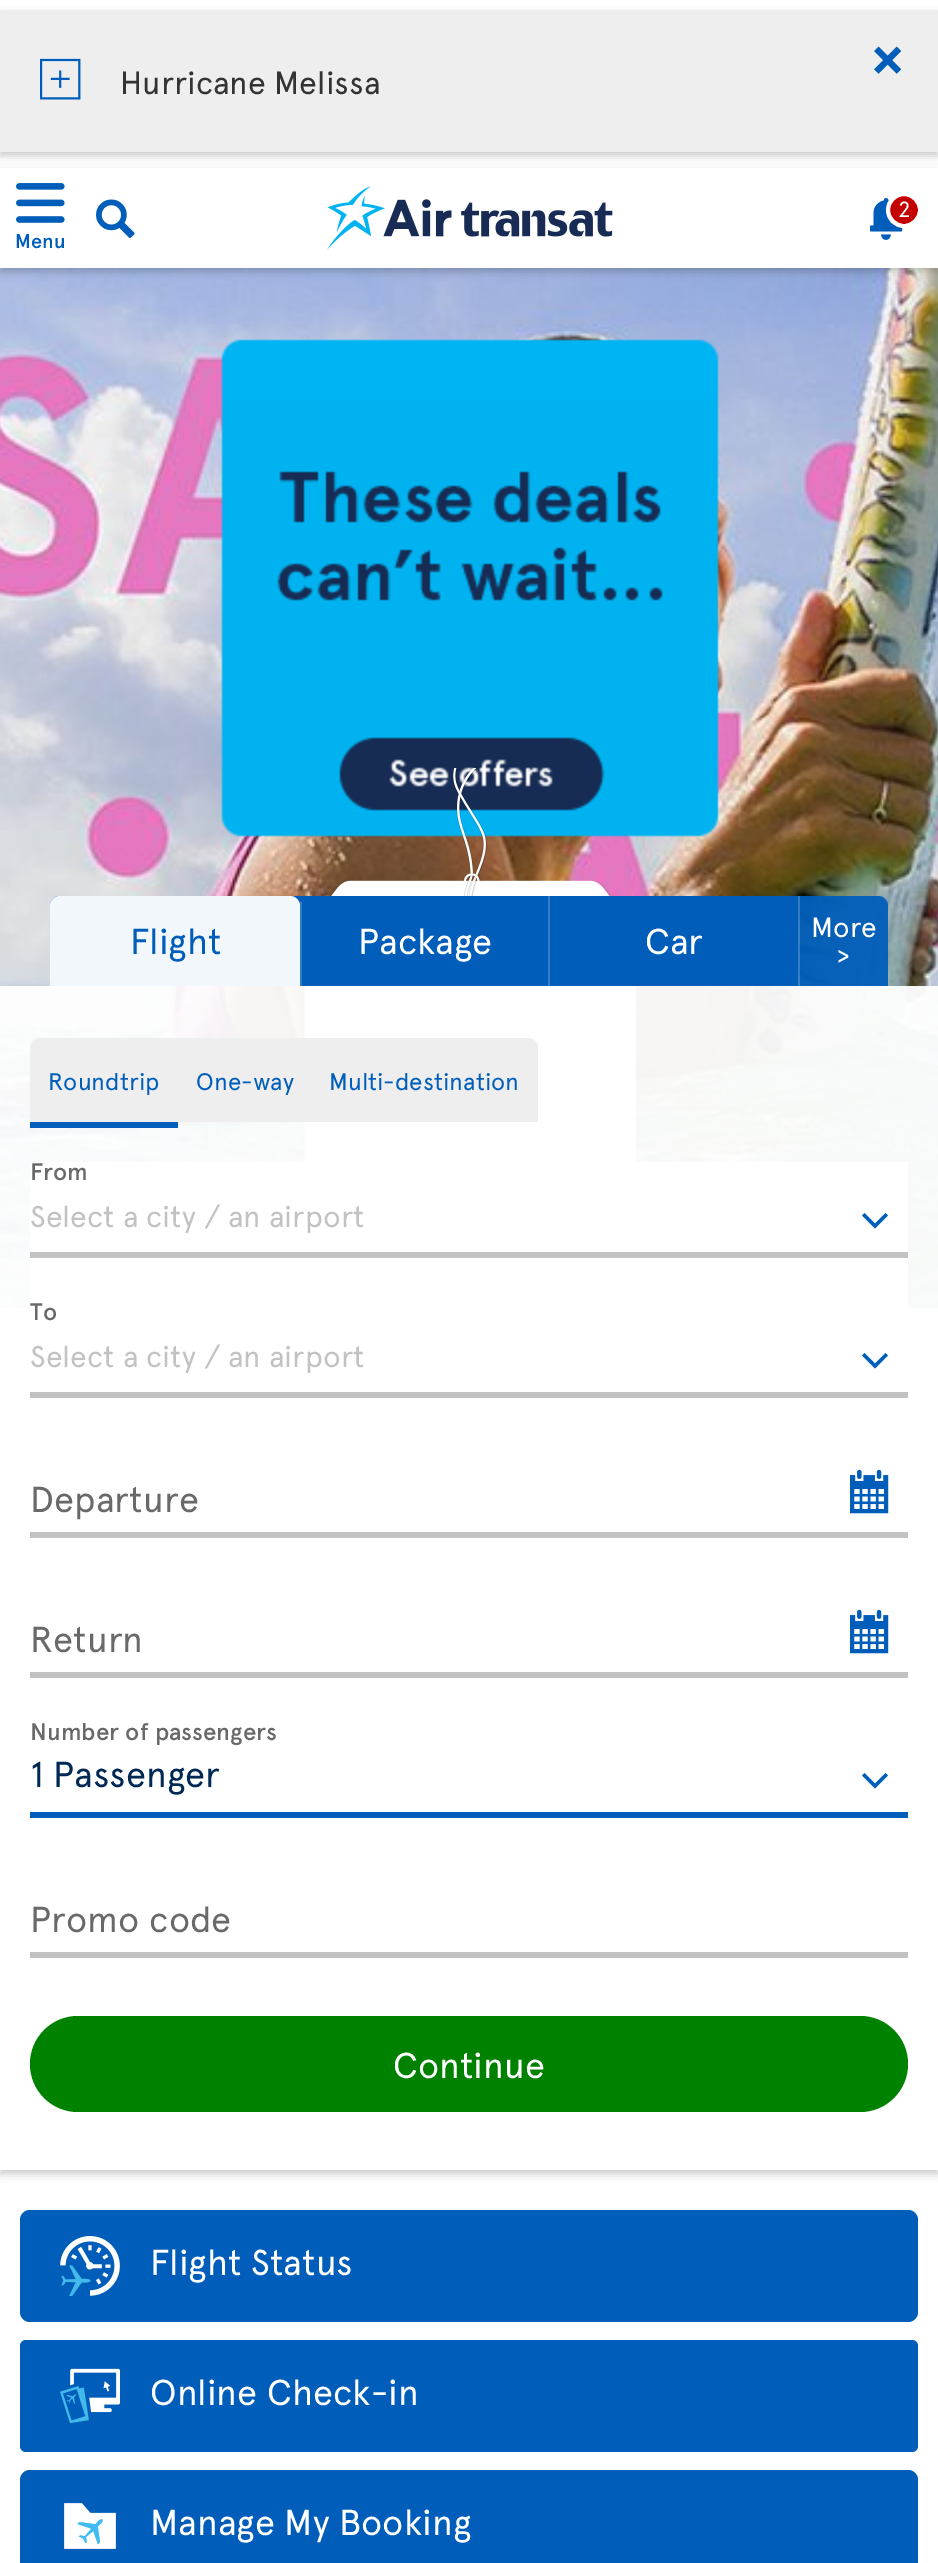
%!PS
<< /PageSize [938 2563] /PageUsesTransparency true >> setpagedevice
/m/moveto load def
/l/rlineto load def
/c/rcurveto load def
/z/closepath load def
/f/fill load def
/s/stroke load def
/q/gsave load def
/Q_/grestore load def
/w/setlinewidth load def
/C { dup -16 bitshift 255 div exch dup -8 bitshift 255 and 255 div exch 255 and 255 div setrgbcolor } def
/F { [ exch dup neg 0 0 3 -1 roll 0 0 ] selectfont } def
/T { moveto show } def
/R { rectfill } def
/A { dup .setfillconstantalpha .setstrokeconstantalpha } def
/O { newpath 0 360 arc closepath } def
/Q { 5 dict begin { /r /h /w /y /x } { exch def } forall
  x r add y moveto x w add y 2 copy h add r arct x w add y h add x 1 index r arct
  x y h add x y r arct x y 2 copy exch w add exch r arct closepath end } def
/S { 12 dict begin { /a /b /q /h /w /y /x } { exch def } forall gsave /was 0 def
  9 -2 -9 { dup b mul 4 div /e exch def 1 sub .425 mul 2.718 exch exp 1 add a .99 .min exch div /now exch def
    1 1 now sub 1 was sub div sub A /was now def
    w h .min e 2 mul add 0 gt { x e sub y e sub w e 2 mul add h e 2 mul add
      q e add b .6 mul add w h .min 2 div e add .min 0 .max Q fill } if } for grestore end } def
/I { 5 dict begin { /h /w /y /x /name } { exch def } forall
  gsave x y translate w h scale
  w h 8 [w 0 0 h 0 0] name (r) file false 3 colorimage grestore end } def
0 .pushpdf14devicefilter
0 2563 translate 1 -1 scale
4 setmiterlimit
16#FFFFFF C
0 0 938 2563 R
16#000000 C
0 14 938 142 0 4 .2 S
16#EEEEEE C
0 10 938 142 R
(1.rgb) 874 46 28 28 I
(2.rgb) 40 58 41 42 I
/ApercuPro-Regular 32 F
16#333333 C
(Hurricane Melissa) 120 94 T
(7.rgb) 0 268 938 1040 I
q
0 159 m 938 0 l 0 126 l -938 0 l z 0 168 m 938 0 l 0 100 l -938 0 l z eoclip newpath
16#000000 C
0 172 938 100 0 4 .2 S
Q_
(3.rgb) 327 186 286 64 I
(4.rgb) 870 198 33 42 I
16#C50000 C
904 210 16 O q f Q_
16#FFFFFF C
4 w
s
/ApercuPro-Regular 22 F
(2) 898 217 T
(5.rgb) 96 199 39 39 I
(6.rgb) 16 183 49 40 I
/ApercuPro-Medium 20 F
16#005EBA C
(Menu) 15 248 T
(8.rgb) 221 339 498 498 I
(9.rgb) 300 768 340 394 I
q
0 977 m 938 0 l 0 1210 l -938 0 l z 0 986 m 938 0 l 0 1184 l -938 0 l z eoclip newpath
16#000000 C
0 990 938 1184 0 4 .2 S
Q_
60 896 m 240 0 l 0 90 l -250 0 l 0 -80 l 0 -5.5 4.5 -10 10 -10 c z f
0.95 A
16#FFFFFF C
60 896 m 230 0 l 5.5 0 10 4.5 10 10 c 0 80 l -250 0 l 0 -80 l 0 -5.5 4.5 -10 10 -10 c z f
0.2 A
50 902 1 4 R
/ApercuPro-Regular 36 F
1 A
16#005EBA C
(Flight) 130 954 T
300 896 248 90 R
16#337EC8 C
300 902 2 84 R
16#FFFFFF C
(Package) 358 954 T
16#005EBA C
550 896 248 90 R
16#337EC8 C
548 896 2 90 R
16#FFFFFF C
(Car) 645 954 T
0.95 A
16#005EBA C
798 896 m 80 0 l 5.5 0 10 4.5 10 10 c 0 80 l -90 0 l z f
0.2 A
16#FFFFFF C
798 896 2 90 R
/ApercuPro-Regular 28 F
1 A
(More) 811 937 T
(>) 837 965 T
0.95 A
0 986 938 322 R
1 A
16#EEEEEE C
40 1038 m 138 0 l 0 90 l -148 0 l 0 -80 l 0 -5.5 4.5 -10 10 -10 c z f
16#005EBA C
30 1122 148 6 R
/ApercuPro-Regular 24 F
(Roundtrip) 48 1090 T
16#EEEEEE C
178 1038 134 84 R
16#005EBA C
(One-way) 196 1090 T
16#EEEEEE C
312 1038 m 216 0 l 5.5 0 10 4.5 10 10 c 0 74 l -226 0 l z f
16#005EBA C
(Multi-destination) 329 1090 T
16#FFFFFF C
30 1162 878 146 R
/ApercuPro-Medium 24 F
16#696969 C
(From) 30 1180 T
16#C2C2C2 C
30 1252 878 6 R
/ApercuPro-Regular 30 F
(Select a city / an airport) 30 1227 T
16#005EBA C
862 1215.5 m 13 13 l 13 -13 l -2.5 -2.5 l -10.5 10.5 l -10.5 -10.5 l z f
/ApercuPro-Medium 24 F
16#696969 C
(To) 30 1320 T
16#C2C2C2 C
30 1392 878 6 R
/ApercuPro-Regular 30 F
(Select a city / an airport) 30 1367 T
16#005EBA C
862 1355.5 m 13 13 l 13 -13 l -2.5 -2.5 l -10.5 10.5 l -10.5 -10.5 l z f
/ApercuPro-Regular 36 F
16#696969 C
(Departure) 30 1512 T
(10.rgb) 850 1469 39 45 I
16#C2C2C2 C
30 1532 878 6 R
16#696969 C
(Return) 30 1652 T
(10.rgb) 850 1609 39 45 I
16#C2C2C2 C
30 1672 878 6 R
/ApercuPro-Medium 24 F
16#696969 C
(Number of passengers) 30 1740 T
16#005EBA C
30 1812 878 6 R
/ApercuPro-Regular 36 F
16#002855 C
(1 Passenger) 30 1787 T
16#005EBA C
862 1775.5 m 13 13 l 13 -13 l -2.5 -2.5 l -10.5 10.5 l -10.5 -10.5 l z f
16#696969 C
(Promo code) 30 1932 T
16#C2C2C2 C
30 1952 878 6 R
16#008200 C
30 2016 878 96 48 Q f
16#FFFFFF C
(Continue) 393 2078 T
16#005EBA C
20 2210 898 112 10 Q f
(11.rgb) 60 2236 60 60 I
16#FFFFFF C
(Flight Status) 150 2275 T
16#005EBA C
20 2340 898 112 6 Q f
(12.rgb) 60 2368 60 56 I
16#FFFFFF C
(Online Check-in) 150 2405 T
16#005EBA C
20 2470 898 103 10 Q f
(13.rgb) 64 2503 52 46 I
16#FFFFFF C
(Manage My Booking) 150 2535 T
.poppdf14devicefilter showpage
